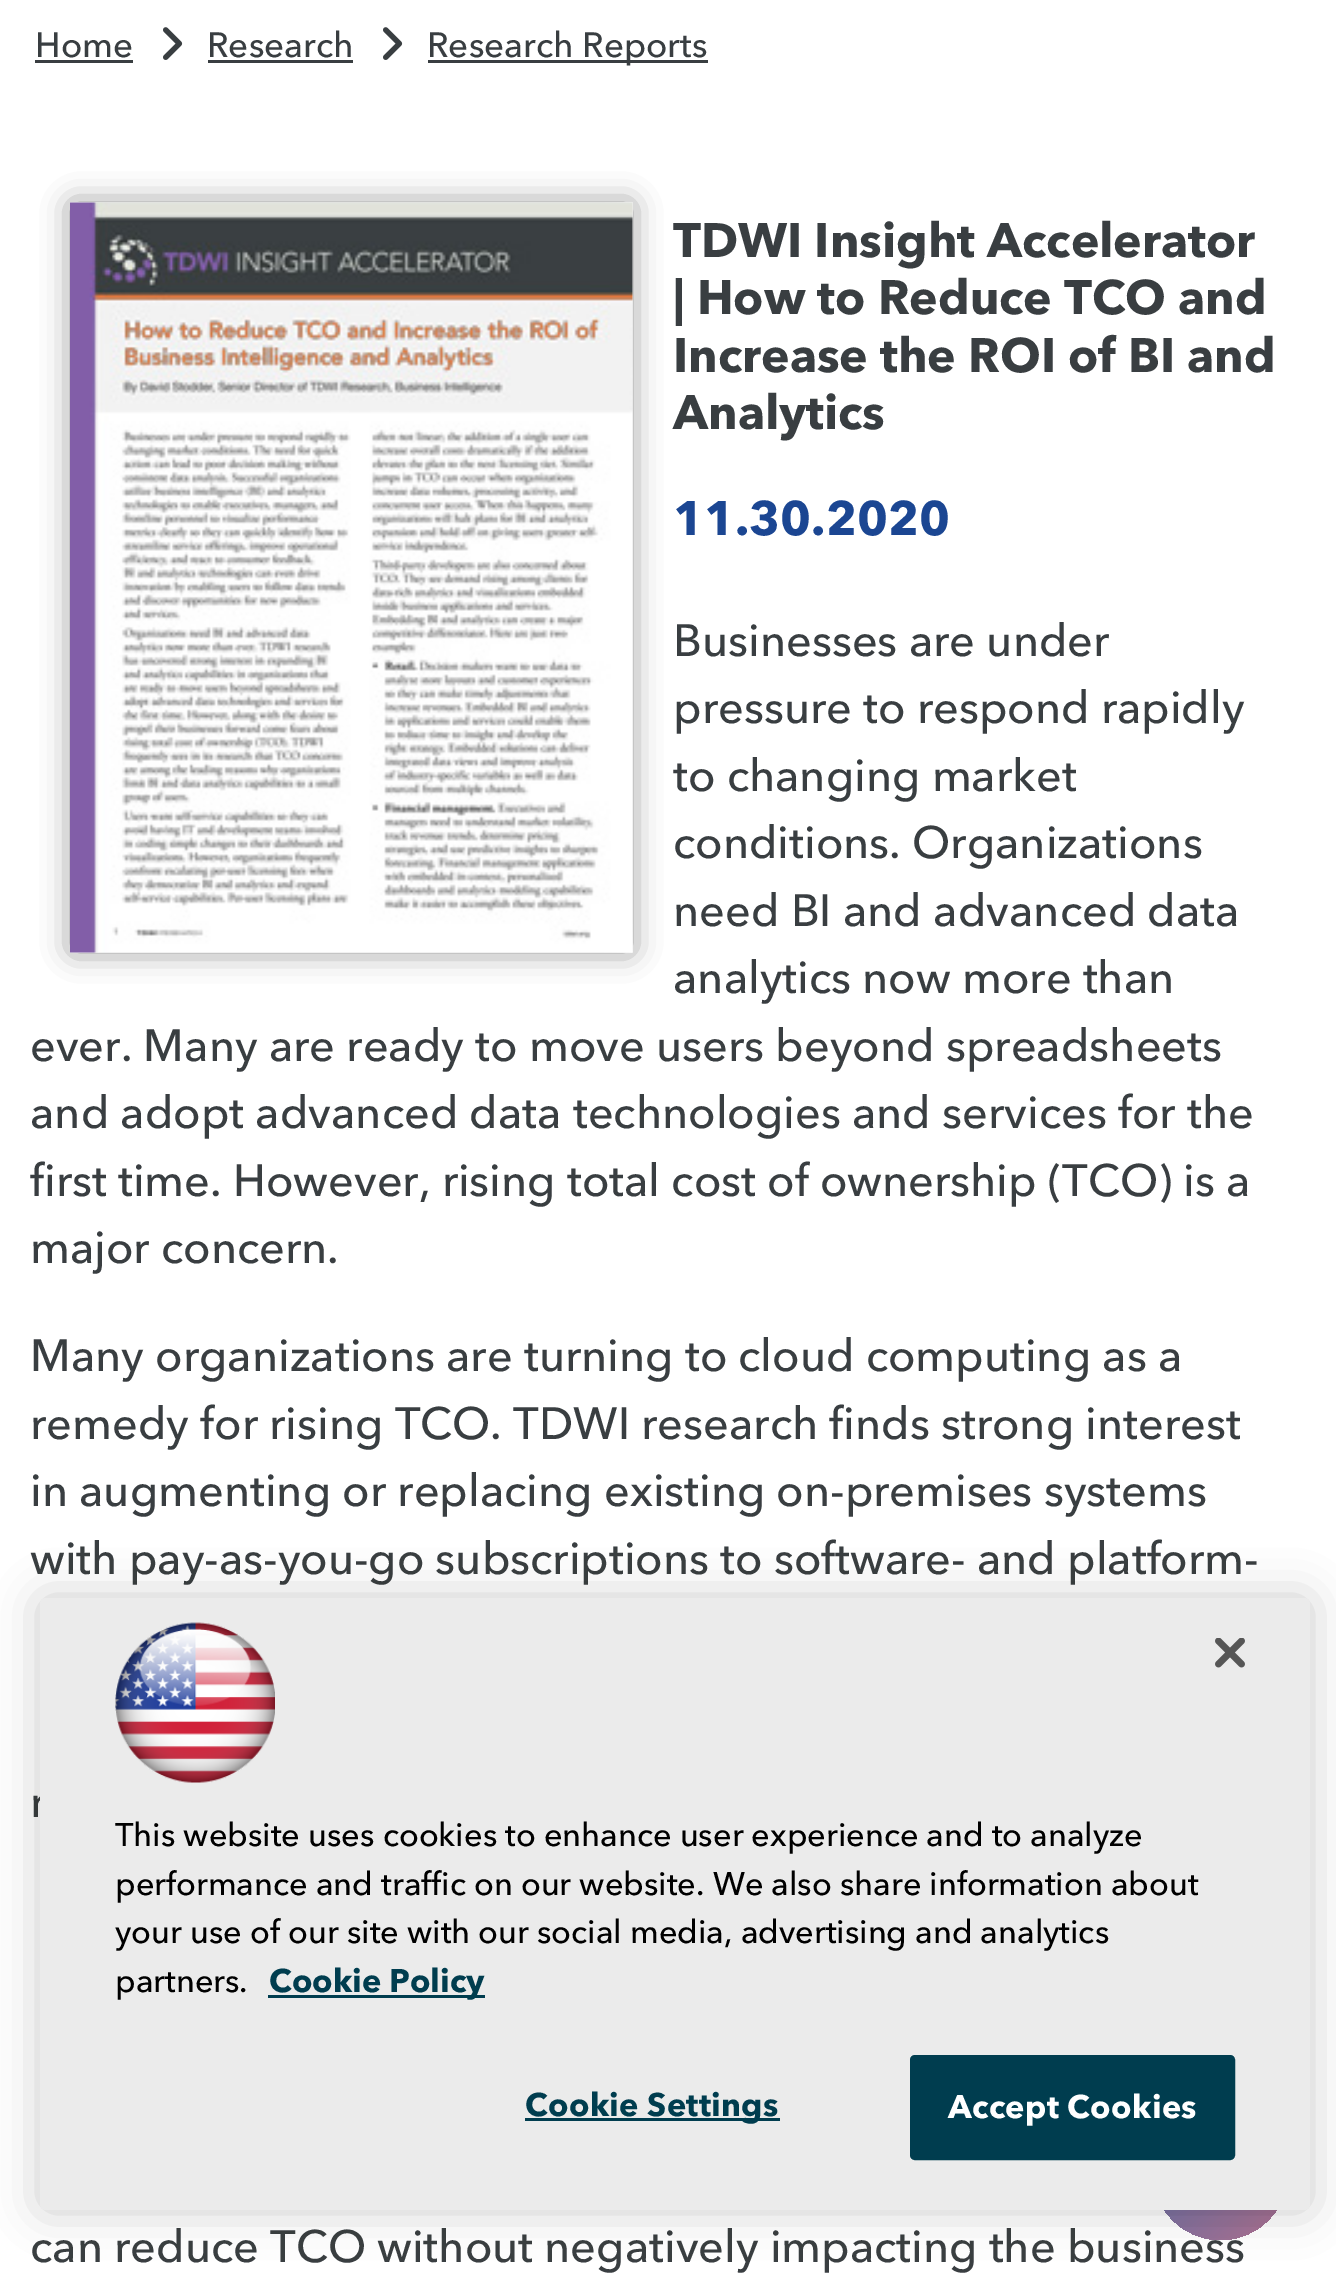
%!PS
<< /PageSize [1336 2289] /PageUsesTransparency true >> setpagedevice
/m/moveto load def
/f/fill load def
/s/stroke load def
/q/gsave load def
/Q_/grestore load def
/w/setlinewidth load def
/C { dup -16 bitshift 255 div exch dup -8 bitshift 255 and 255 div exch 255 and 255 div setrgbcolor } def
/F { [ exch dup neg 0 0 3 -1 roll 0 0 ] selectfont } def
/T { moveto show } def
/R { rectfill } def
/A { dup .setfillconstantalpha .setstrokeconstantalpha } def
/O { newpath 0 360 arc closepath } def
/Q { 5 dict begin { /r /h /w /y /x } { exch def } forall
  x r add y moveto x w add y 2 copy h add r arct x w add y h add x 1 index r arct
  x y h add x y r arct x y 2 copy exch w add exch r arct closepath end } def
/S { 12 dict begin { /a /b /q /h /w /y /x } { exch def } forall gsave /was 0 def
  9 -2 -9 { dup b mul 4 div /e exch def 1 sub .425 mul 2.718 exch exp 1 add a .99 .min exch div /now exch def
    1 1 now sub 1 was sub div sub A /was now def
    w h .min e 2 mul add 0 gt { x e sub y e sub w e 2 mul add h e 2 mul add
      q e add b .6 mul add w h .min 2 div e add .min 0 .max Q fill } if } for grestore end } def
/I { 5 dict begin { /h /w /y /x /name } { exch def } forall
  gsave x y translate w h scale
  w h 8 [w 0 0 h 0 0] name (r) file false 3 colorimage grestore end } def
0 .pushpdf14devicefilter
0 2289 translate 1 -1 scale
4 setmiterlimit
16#FFFFFF C
0 0 1336 2289 R
/AvenirNext-Medium 35 F
16#393E41 C
(Home) 35 57 T
35 60 98 3 R
(1.rgb) 163 27 20 33 I
(Research) 207 57 T
208 60 145 3 R
(1.rgb) 383 27 20 33 I
428 60 280 3 R
(Research Reports) 427 57 T
16#000000 C
73 205 557 745 0 15 .51 S
(2.rgb) 70 202 563 751 I
/AvenirNext-Bold 48 F
16#393E41 C
(TDWI Insight Accelerator) 673 257 T
(| How to Reduce TCO and) 673 314 T
(Increase the ROI of BI and) 673 372 T
(Analytics) 673 429 T
16#1B4692 C
(11.30.2020) 673 535 T
/AvenirNext-Medium 45 F
16#393E41 C
(Businesses are under) 673 656 T
(pressure to respond rapidly) 673 723 T
(to changing market) 673 791 T
(conditions. Organizations) 673 858 T
(need BI and advanced data) 673 926 T
(analytics now more than) 673 993 T
(ever. Many are ready to move users beyond spreadsheets) 30 1061 T
(and adopt advanced data technologies and services for the) 30 1128 T
(first time. However, rising total cost of ownership \(TCO\) is a) 30 1196 T
(major concern.) 30 1263 T
(Many organizations are turning to cloud computing as a) 30 1371 T
(remedy for rising TCO. TDWI research finds strong interest) 30 1439 T
(in augmenting or replacing existing on-premises systems) 30 1506 T
(with pay-as-you-go subscriptions to software- and platform-) 30 1574 T
(r) 30 1817 T
(can reduce TCO without negatively impacting the business) 30 2262 T
0.75 A
q 1220.5 2172.5 67.5 O clip newpath
<< /ShadingType 2 /ColorSpace /DeviceRGB /Coords [1153 2105 1288 2240] /Extend [true true] /Function << /FunctionType 2 /Domain [0 1] /C0 [.106 .275 .573] /C1 [.588 .251 .412] /N 1 >> >> shfill Q_
1 A
16#000000 C
40 1598 1270 612 6 22.5 .2 S
16#EBEBEB C
40 1598 1270 612 6 Q f
(3.rgb) 1215 1638 30 30 I
(4.rgb) 115 1622 160 161 I
/AvenirNext-Medium 32.5 F
16#000000 C
(This website uses cookies to enhance user experience and to analyze) 115 1846 T
(performance and traffic on our website. We also share information about) 115 1895 T
(your use of our site with our social media, advertising and analytics) 115 1943 T
(partners.) 115 1992 T
16#003D4F C
268 1995 217 3 R
/AvenirNext-Bold 32.5 F
(Cookie Policy) 269 1992 T
525 2118 255 3 R
525 2116 m .3 0 (Cookie Settings) ashow
911.5 2056.5 322 102 3.5 Q q f Q_
3 w
s
16#FFFFFF C
948 2118 m .3 0 (Accept Cookies) ashow
.poppdf14devicefilter showpage
